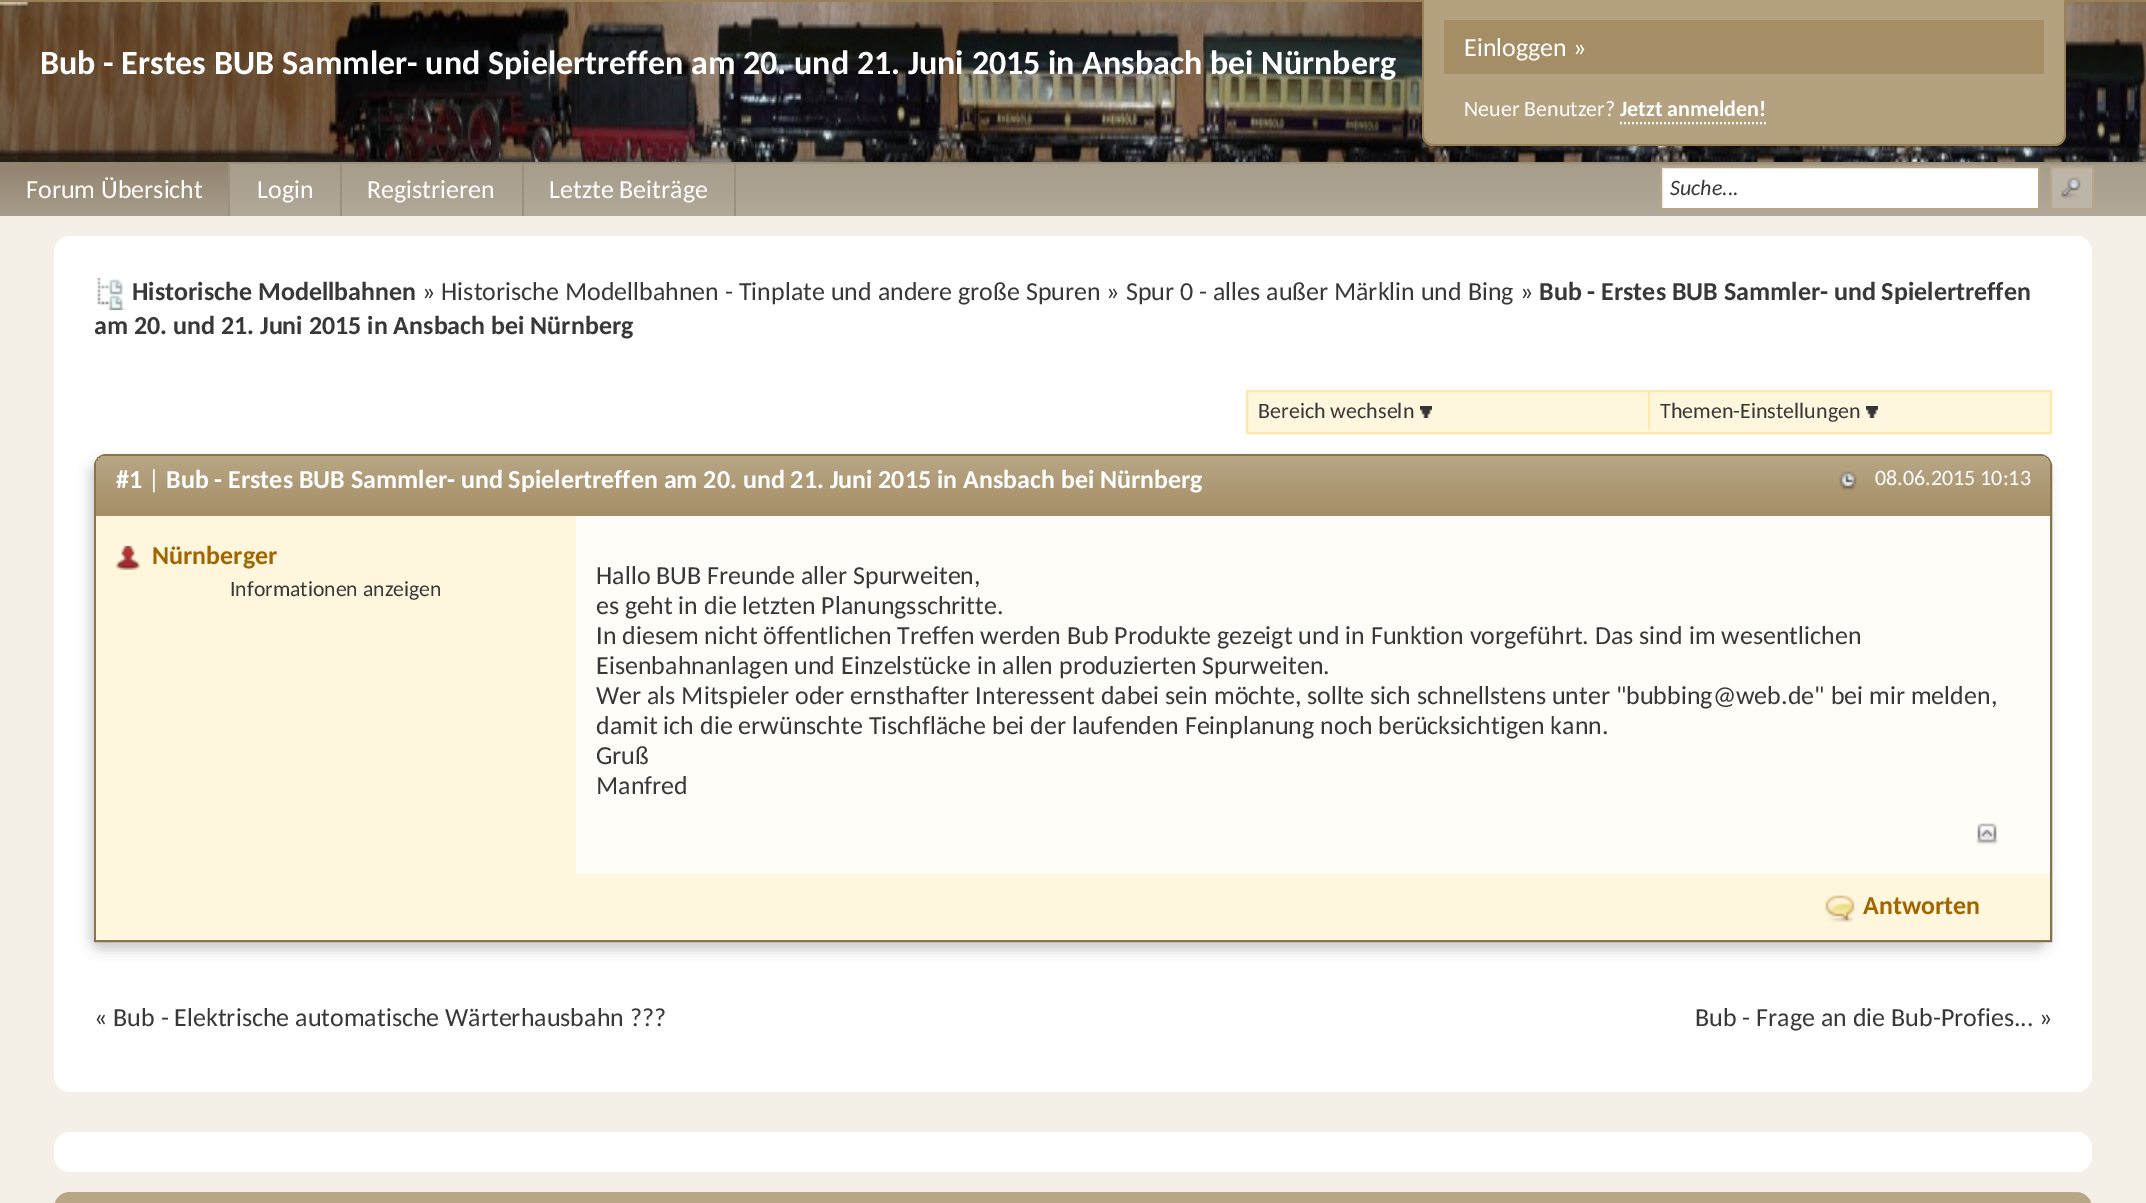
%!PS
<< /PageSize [2146 1203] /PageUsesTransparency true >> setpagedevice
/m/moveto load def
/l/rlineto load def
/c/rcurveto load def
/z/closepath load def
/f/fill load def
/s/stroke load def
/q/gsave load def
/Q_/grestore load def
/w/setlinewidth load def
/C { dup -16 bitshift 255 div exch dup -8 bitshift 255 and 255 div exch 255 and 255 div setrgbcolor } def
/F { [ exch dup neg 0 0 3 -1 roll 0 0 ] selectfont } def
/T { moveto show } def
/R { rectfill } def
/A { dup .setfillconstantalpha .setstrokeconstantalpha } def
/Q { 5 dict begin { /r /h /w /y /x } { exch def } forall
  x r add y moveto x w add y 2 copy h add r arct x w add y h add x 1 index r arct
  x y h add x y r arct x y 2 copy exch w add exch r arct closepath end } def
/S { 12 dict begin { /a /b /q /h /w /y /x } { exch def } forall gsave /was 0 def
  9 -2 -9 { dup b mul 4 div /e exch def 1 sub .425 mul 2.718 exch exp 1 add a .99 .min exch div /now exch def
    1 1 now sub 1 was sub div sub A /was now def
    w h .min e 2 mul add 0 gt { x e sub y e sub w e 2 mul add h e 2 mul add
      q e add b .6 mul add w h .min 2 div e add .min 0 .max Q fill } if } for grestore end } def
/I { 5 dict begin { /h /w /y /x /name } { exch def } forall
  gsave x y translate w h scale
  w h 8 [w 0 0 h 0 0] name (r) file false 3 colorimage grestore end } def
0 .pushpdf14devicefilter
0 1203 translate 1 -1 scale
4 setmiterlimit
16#F5F0E7 C
0 0 2146 1203 R
16#988159 C
0 0 2146 2 R
(1.rgb) 0 2 2146 160 I
16#B4A17F C
1422 0 m 644 0 l 0 134 l 0 6.5 -5.5 12 -12 12 c -620 0 l -6.5 0 -12 -5.5 -12 -12 c z f
16#988159 C
1422 0 m 644 0 l 0 134 l 0 7 -5 12 -12 12 c -620 0 l -7 0 -12 -5 -12 -12 c z 1424 0 m 640 0 l 0 134 l 0 6 -4 10 -10 10 c -620 0 l -6 0 -10 -4 -10 -10 c z eofill
16#A58E65 C
1444 20 600 54 R
/Carlito-Regular 26 F
16#FFFFFF C
(Einloggen ») 1464 56 T
/Carlito-Regular 22 F
(Neuer Benutzer?) 1464 116 T
/Carlito-Bold 22 F
(Jetzt anmelden!) 1620 116 T
2 w
[2 2] 0 setdash
1620 123 m 146 0 l s
/Carlito-Bold 34 F
(Bub - Erstes BUB Sammler- und Spielertreffen am 20. und 21. Juni 2015 in Ansbach bei Nürnberg) 40 74 T
q 230 164 m 1916 0 l 0 52 l -1916 0 l z clip newpath
<< /ShadingType 2 /ColorSpace /DeviceRGB /Coords [0 162 0 216] /Extend [true true] /Function << /FunctionType 2 /Domain [0 1] /C0 [.655 .612 .545] /C1 [.694 .659 .6] /N 1 >> >> shfill Q_
16#9C907C C
230 162 1916 2 R
q 0 162 m 228 0 l 0 54 l -228 0 l z clip newpath
<< /ShadingType 2 /ColorSpace /DeviceRGB /Coords [0 162 0 216] /Extend [true true] /Function << /FunctionType 2 /Domain [0 1] /C0 [.569 .514 .431] /C1 [.655 .612 .545] /N 1 >> >> shfill Q_
228 162 2 54 R
/Carlito-Regular 26 F
16#FFFFFF C
(Forum Übersicht) 26 198 T
(Login) 257 198 T
16#9C907C C
340 162 2 54 R
16#FFFFFF C
(Registrieren) 367 198 T
16#9C907C C
734 162 2 54 R
522 162 2 54 R
16#FFFFFF C
(Letzte Beiträge) 549 198 T
1661 167 m 378 0 l 0 42 l -378 0 l z q f Q_
16#B8A686 C
[] 0 setdash
s
/Carlito-Italic 22 F
16#383838 C
(Suche...) 1670 195 T
16#BDB5A8 C
2052 168 40 40 R
(2.rgb) 2060 177 21 22 I
16#B8A686 C
2051 167 42 42 rectstroke
16#FFFFFF C
54 236 2038 856 16 Q f
(3.rgb) 97 278 28 32 I
/Carlito-Bold 26 F
16#383838 C
(Historische Modellbahnen) 132 300 T
/Carlito-Regular 26 F
(» Historische Modellbahnen - Tinplate und andere große Spuren » Spur 0 - alles außer Märklin und Bing ») 422 300 T
/Carlito-Bold 26 F
(Bub - Erstes BUB Sammler- und Spielertreffen) 1539 300 T
(am 20. und 21. Juni 2015 in Ansbach bei Nürnberg) 94 334 T
16#FEF6DD C
1247 391 m 804 0 l 0 42 l -804 0 l z q f Q_
16#FFE9AA C
s
/Carlito-Regular 22 F
16#383838 C
(Bereich wechseln) 1258 418 T
(4.rgb) 1420 406 12 12 I
16#FFE9AA C
1648 392 2 38 R
16#383838 C
(Themen-Einstellungen) 1660 418 T
(4.rgb) 1866 406 12 12 I
16#CCCCCC C
90 462 1958 488 12 6 1 S
16#88734F C
106 455 m 1934 0 l 6 0 11 5 11 11 c 0 475 l -1956 0 l 0 -475 l 0 -6 5 -11 11 -11 c z s
q 106 456 m 1934 0 l 5.5 0 10 4.5 10 10 c 0 50 l -1954 0 l 0 -50 l 0 -5.5 4.5 -10 10 -10 c z clip newpath
<< /ShadingType 2 /ColorSpace /DeviceRGB /Coords [96 456 96 516] /Extend [true true] /Function << /FunctionType 2 /Domain [0 1] /C0 [.722 .651 .525] /C1 [.647 .557 .396] /N 1 >> >> shfill Q_
/Carlito-Bold 26 F
16#FFFFFF C
(#1) 116 488 T
/Carlito-Regular 26 F
(|) 148 488 T
/Carlito-Bold 26 F
(Bub - Erstes BUB Sammler- und Spielertreffen am 20. und 21. Juni 2015 in Ansbach bei Nürnberg) 166 488 T
(5.rgb) 1839 471 18 20 I
/Carlito-Regular 22 F
(08.06.2015 10:13) 1875 485 T
16#FFFDF7 C
576 516 1474 358 R
16#FEF6DD C
96 516 480 358 R
(6.rgb) 116 546 24 24 I
/Carlito-Bold 26 F
16#A16600 C
(Nürnberger) 152 564 T
/Carlito-Regular 21.75 F
16#383838 C
(Informationen anzeigen) 230 596 T
/Carlito-Regular 26 F
(Hallo BUB Freunde aller Spurweiten,) 596 584 T
(es geht in die letzten Planungsschritte.) 596 614 T
(In diesem nicht öffentlichen Treffen werden Bub Produkte gezeigt und in Funktion vorgeführt. Das sind im wesentlichen) 596 644 T
(Eisenbahnanlagen und Einzelstücke in allen produzierten Spurweiten.) 596 674 T
(Wer als Mitspieler oder ernsthafter Interessent dabei sein möchte, sollte sich schnellstens unter "bubbing@web.de" bei mir melden,) 596 704 T
(damit ich die erwünschte Tischfläche bei der laufenden Feinplanung noch berücksichtigen kann.) 596 734 T
(Gruß) 596 764 T
(Manfred) 596 794 T
16#FEF6DD C
96 874 1954 66 R
(7.rgb) 1825 895 30 28 I
/Carlito-Bold 26 F
16#A16600 C
(Antworten) 1863 914 T
(8.rgb) 1976 823 22 22 I
/Carlito-Regular 26 F
16#383838 C
(« Bub - Elektrische automatische Wärterhausbahn ???) 94 1026 T
(Bub - Frage an die Bub-Profies... ») 1695 1026 T
16#FFFFFF C
54 1132 2038 40 16 Q f
16#B8A686 C
54 1192 2038 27 16 Q f
.poppdf14devicefilter showpage
